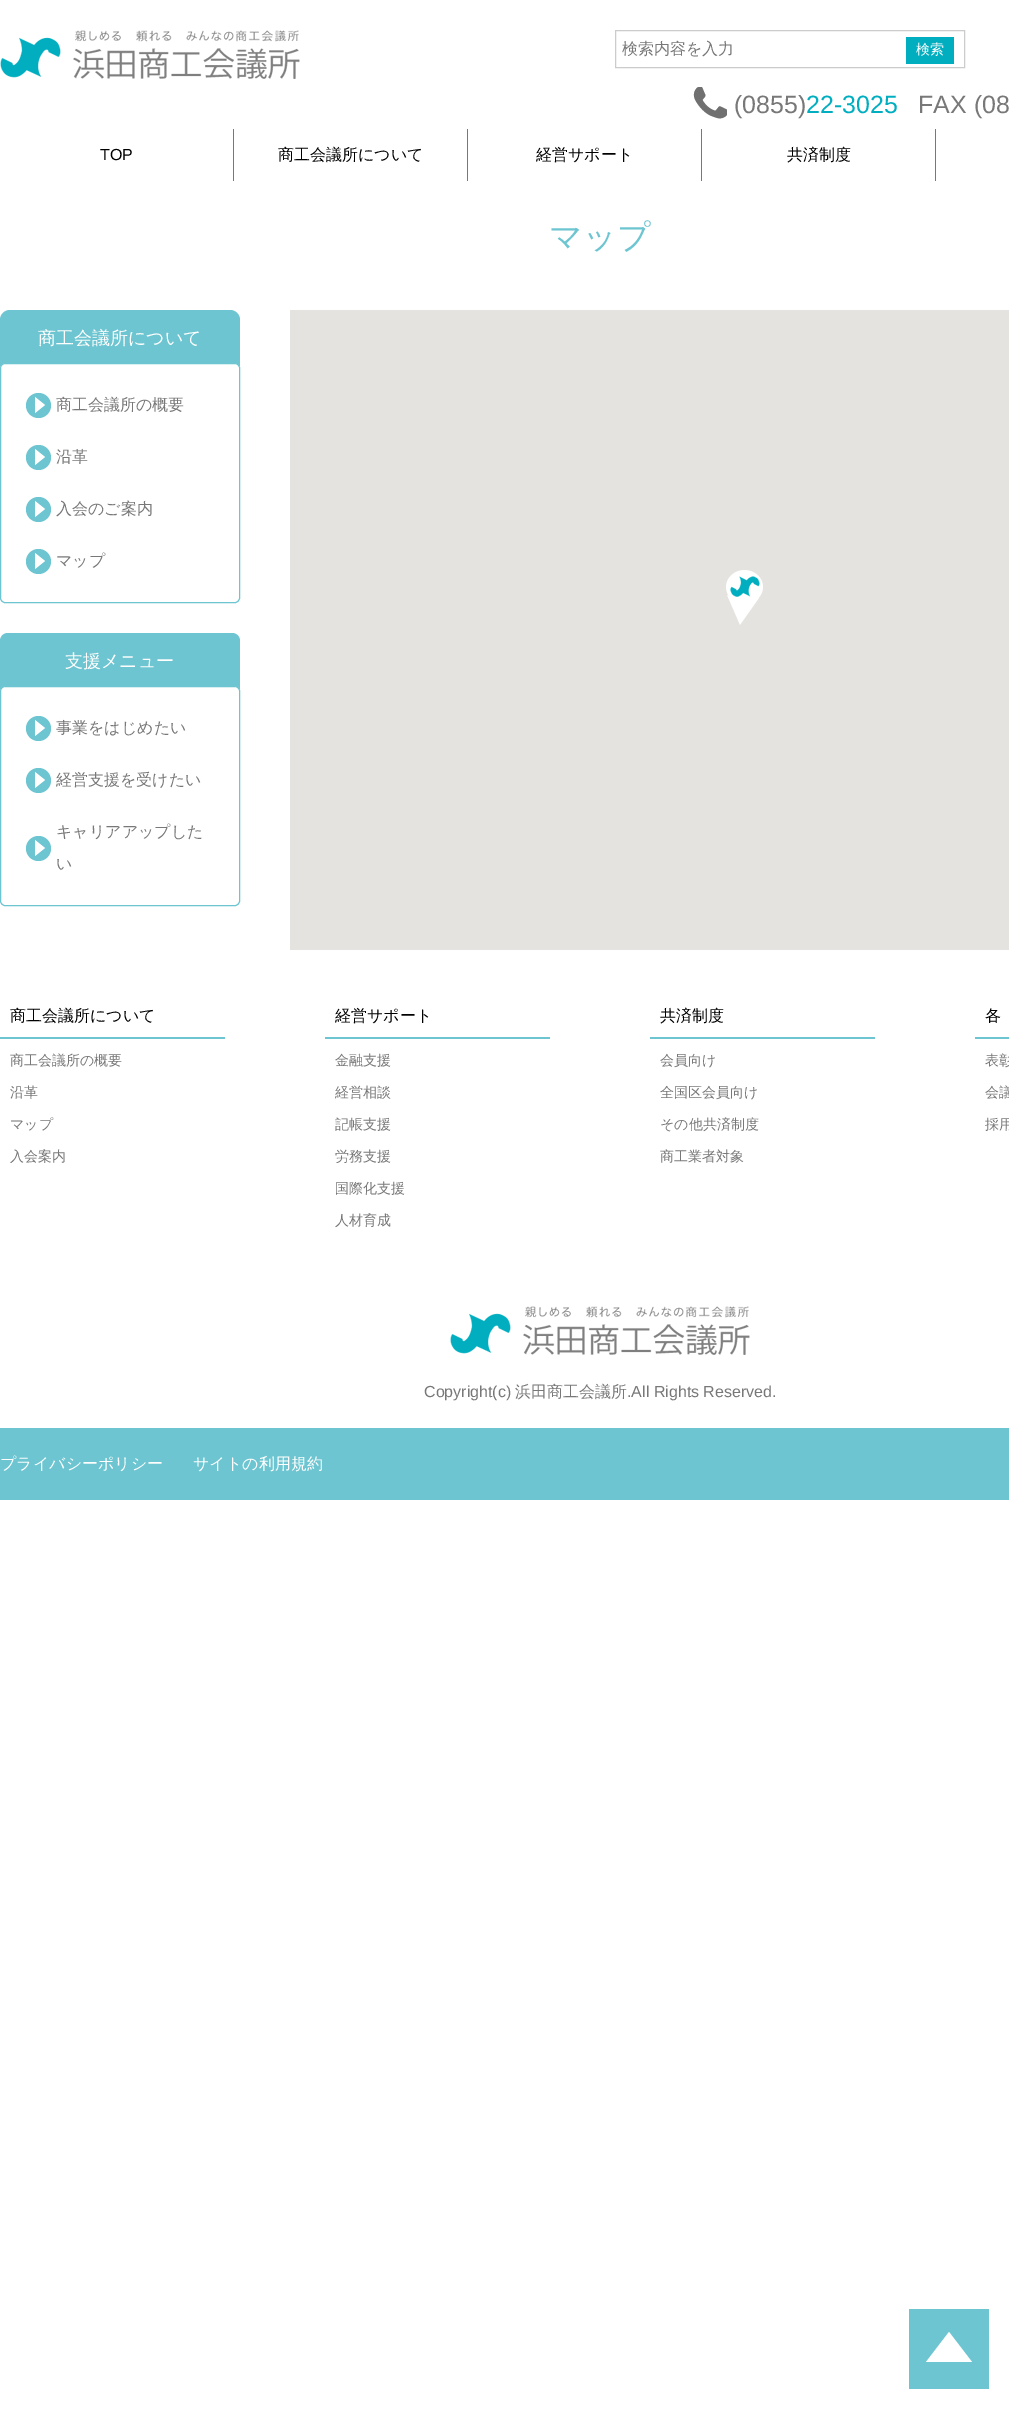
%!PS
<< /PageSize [1009 2409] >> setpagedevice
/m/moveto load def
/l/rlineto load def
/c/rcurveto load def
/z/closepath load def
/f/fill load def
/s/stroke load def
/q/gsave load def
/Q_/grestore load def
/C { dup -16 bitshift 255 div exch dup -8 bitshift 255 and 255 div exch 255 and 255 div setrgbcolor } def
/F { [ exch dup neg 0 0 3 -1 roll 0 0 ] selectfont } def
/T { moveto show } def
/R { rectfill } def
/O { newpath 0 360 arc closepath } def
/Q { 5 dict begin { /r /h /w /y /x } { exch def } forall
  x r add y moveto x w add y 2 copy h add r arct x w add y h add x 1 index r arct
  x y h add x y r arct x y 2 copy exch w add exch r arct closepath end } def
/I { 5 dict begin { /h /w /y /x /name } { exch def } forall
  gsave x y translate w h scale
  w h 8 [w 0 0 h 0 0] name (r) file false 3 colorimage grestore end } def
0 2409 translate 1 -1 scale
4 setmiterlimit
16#FFFFFF C
0 0 1009 2409 R
(1.rgb) 0 30 300 49 I
16#CCCCCC C
615.5 30.5 349 37 rectstroke
/WenQuanYiZenHei-Medium 16 F
16#787878 C
(検索内容を入力) 622 54 T
16#00AEBF C
906 37 48 27 R
/WenQuanYiZenHei-Medium 14 F
16#FFFFFF C
(検索) 916 54 T
(2.rgb) 693 87 34 32 I
/LiberationSans-Regular 25 F
16#787878 C
(\(0855\)) 734 113 T
16#00AEBF C
(22-3025) 806 113 T
16#787878 C
(FAX \(08) 918 113 T
233 129 1 52 R
/LiberationSans-Regular 16 F
16#000000 C
(TOP) 100 160 T
16#787878 C
467 129 1 52 R
/WenQuanYiZenHei-Medium 16 F
16#000000 C
(商工会議所について) 278 160 T
16#787878 C
701 129 1 52 R
16#000000 C
(経営サポート) 536 160 T
16#787878 C
935 129 1 52 R
16#000000 C
(共済制度) 787 160 T
/WenQuanYiZenHei-Medium 33 F
16#6DC5D1 C
(マップ) 549 248 T
10 310 m 220 0 l 5.5 0 10 4.5 10 10 c 0 46 l -240 0 l 0 -46 l 0 -5.5 4.5 -10 10 -10 c z f
/WenQuanYiZenHei-Medium 18 F
16#FFFFFF C
(商工会議所について) 38 344 T
.5 363.5 239 239 4.5 Q q f Q_
16#6DC5D1 C
s
38.5 405.5 12.5 O f
/WenQuanYiZenHei-Medium 16 F
16#787878 C
(商工会議所の概要) 56 410 T
16#FFFFFF C
35 413 m 0 -16 l 10 8 l z f
16#6DC5D1 C
38.5 457.5 12.5 O f
16#787878 C
(沿革) 56 462 T
16#FFFFFF C
35 465 m 0 -16 l 10 8 l z f
16#6DC5D1 C
38.5 509.5 12.5 O f
16#787878 C
(入会のご案内) 56 514 T
16#FFFFFF C
35 517 m 0 -16 l 10 8 l z f
16#6DC5D1 C
38.5 561.5 12.5 O f
16#787878 C
(マップ) 56 566 T
16#FFFFFF C
35 569 m 0 -16 l 10 8 l z f
16#6DC5D1 C
8 633 m 224 0 l 4.5 0 8 3.5 8 8 c 0 48 l -240 0 l 0 -48 l 0 -4.5 3.5 -8 8 -8 c z f
/WenQuanYiZenHei-Medium 18 F
16#FFFFFF C
(支援メニュー) 65 667 T
.5 686.5 239 219 4.5 Q q f Q_
16#6DC5D1 C
s
38.5 728.5 12.5 O f
/WenQuanYiZenHei-Medium 16 F
16#787878 C
(事業をはじめたい) 56 733 T
16#FFFFFF C
35 736 m 0 -16 l 10 8 l z f
16#6DC5D1 C
38.5 780.5 12.5 O f
16#787878 C
(経営支援を受けたい) 56 785 T
16#FFFFFF C
35 788 m 0 -16 l 10 8 l z f
16#787878 C
(キャリアアップした) 56 837 T
16#6DC5D1 C
38.5 848.5 12.5 O f
16#FFFFFF C
35 856 m 0 -16 l 10 8 l z f
16#787878 C
(い) 56 869 T
16#E5E3DF C
290 310 719 640 R
(3.rgb) 726 570 37 55 I
16#6DC5D1 C
0 1037 225 2 R
16#000000 C
(商工会議所について) 10 1021 T
/WenQuanYiZenHei-Medium 14 F
16#787878 C
(商工会議所の概要) 10 1065 T
(沿革) 10 1097 T
(マップ) 10 1129 T
(入会案内) 10 1161 T
16#6DC5D1 C
325 1037 225 2 R
/WenQuanYiZenHei-Medium 16 F
16#000000 C
(経営サポート) 335 1021 T
/WenQuanYiZenHei-Medium 14 F
16#787878 C
(金融支援) 335 1065 T
(経営相談) 335 1097 T
(記帳支援) 335 1129 T
(労務支援) 335 1161 T
(国際化支援) 335 1193 T
(人材育成) 335 1225 T
16#6DC5D1 C
650 1037 225 2 R
/WenQuanYiZenHei-Medium 16 F
16#000000 C
(共済制度) 660 1021 T
/WenQuanYiZenHei-Medium 14 F
16#787878 C
(会員向け) 660 1065 T
(全国区会員向け) 660 1097 T
(その他共済制度) 660 1129 T
(商工業者対象) 660 1161 T
16#6DC5D1 C
975 1037 34 2 R
/WenQuanYiZenHei-Medium 16 F
16#000000 C
(各) 985 1021 T
/WenQuanYiZenHei-Medium 14 F
16#787878 C
(表彰) 985 1065 T
(会議) 985 1097 T
(採用) 985 1129 T
(1.rgb) 450 1306 300 49 I
/LiberationSans-Regular 16 F
(Copyright\(c\)) 424 1397 T
/WenQuanYiZenHei-Medium 16 F
(浜田商工会議所) 515 1397 T
/LiberationSans-Regular 16 F
(.All Rights Reserved.) 627 1397 T
16#6DC5D1 C
909 2309 80 80 R
16#FFFFFF C
972 2362 m -46 0 l 23 -30 l z f
16#6DC5D1 C
0 1428 1009 72 R
/WenQuanYiZenHei-Medium 16 F
16#FFFFFF C
(プライバシーポリシー) 0 1469 T
(サイトの利用規約) 193 1469 T
showpage
